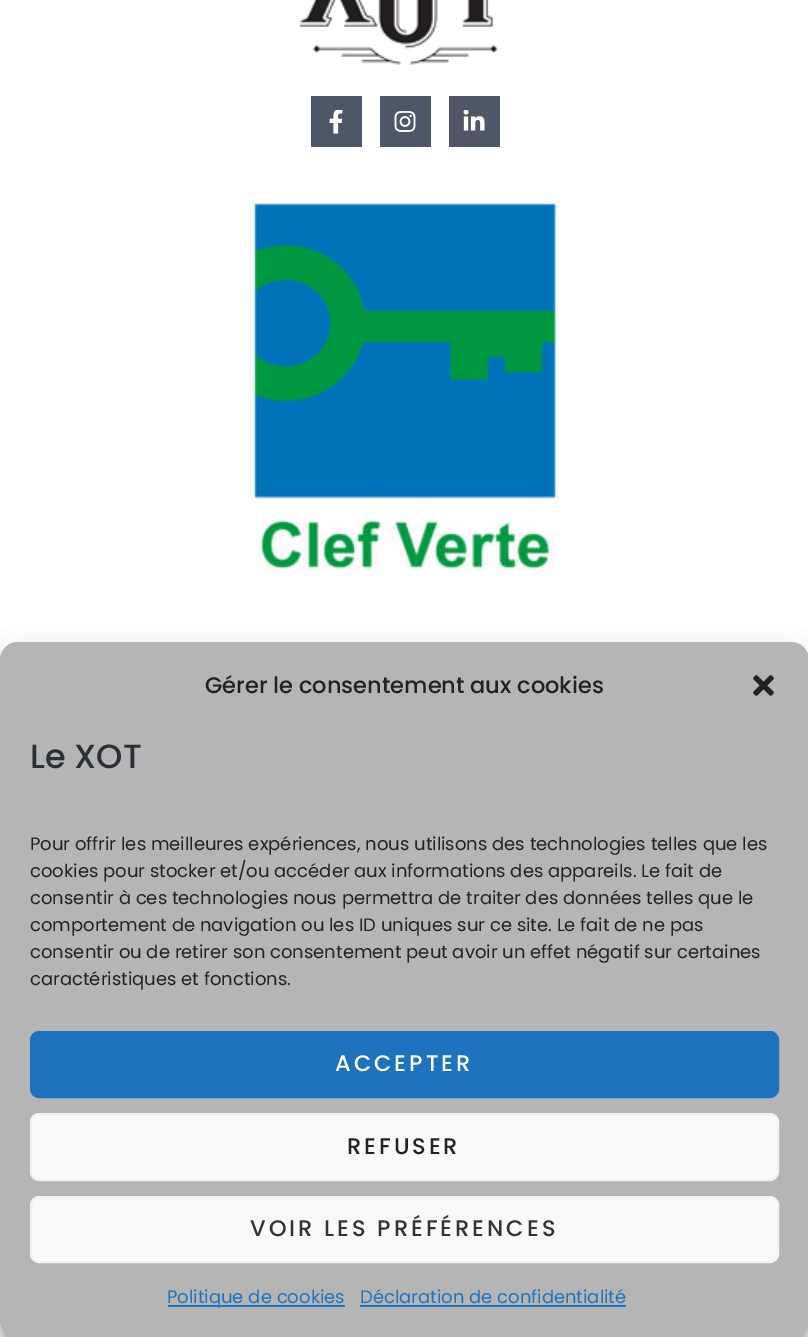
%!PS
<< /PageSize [808 1337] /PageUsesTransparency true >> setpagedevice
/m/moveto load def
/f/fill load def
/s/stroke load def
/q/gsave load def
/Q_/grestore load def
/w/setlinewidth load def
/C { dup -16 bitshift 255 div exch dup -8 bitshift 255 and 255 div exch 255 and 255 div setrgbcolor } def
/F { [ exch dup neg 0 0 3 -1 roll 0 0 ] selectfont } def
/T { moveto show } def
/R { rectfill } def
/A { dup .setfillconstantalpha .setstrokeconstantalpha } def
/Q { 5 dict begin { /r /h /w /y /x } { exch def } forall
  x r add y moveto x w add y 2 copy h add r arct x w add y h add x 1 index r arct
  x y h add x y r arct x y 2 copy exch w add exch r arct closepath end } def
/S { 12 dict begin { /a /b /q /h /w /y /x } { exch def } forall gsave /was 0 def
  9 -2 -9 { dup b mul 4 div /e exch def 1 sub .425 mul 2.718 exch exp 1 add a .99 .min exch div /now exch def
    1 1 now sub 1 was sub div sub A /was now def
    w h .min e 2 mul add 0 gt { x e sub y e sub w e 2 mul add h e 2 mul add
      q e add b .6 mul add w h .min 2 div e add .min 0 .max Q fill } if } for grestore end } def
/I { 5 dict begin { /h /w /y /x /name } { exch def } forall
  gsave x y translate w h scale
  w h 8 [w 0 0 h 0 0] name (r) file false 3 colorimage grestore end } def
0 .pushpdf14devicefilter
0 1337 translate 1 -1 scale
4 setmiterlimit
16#FFFFFF C
0 0 808 1337 R
(1.rgb) 300 0 198 65 I
16#4E5768 C
311 96 51 51 R
(2.rgb) 329 110 14 24 I
380 96 51 51 R
(3.rgb) 394 111 22 21 I
449 96 51 51 R
(4.rgb) 463 110 22 21 I
(5.rgb) 246 198 312 372 I
16#000000 C
0 651 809 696 18 4.5 .23 S
0 657 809 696 18 15 .19 S
16#B5B5B5 C
0 642 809 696 18 Q f
/Poppins-Medium 22.5 F
16#222222 C
(Gérer le consentement aux cookies) 205 693 T
(6.rgb) 753 675 21 21 I
/Poppins-Medium 33.5 F
16#2B2F38 C
(Le XOT) 30 768 T
/Poppins-Regular 18 F
16#222222 C
(Pour offrir les meilleures expériences, nous utilisons des technologies telles que les) 30 850 T
(cookies pour stocker et/ou accéder aux informations des appareils. Le fait de) 30 877 T
(consentir à ces technologies nous permettra de traiter des données telles que le) 30 904 T
(comportement de navigation ou les ID uniques sur ce site. Le fait de ne pas) 30 931 T
(consentir ou de retirer son consentement peut avoir un effet négatif sur certaines) 30 958 T
(caractéristiques et fonctions.) 30 985 T
16#1E73BE C
31 1032 747 65 8 Q q f Q_
2 w
s
/Poppins-Medium 22.5 F
16#FFFFFF C
335 1071 m 3 0 (ACCEPTER) ashow
16#F9F9F9 C
31 1114 747 66 8 Q q f Q_
16#F2F2F2 C
s
16#222222 C
347 1154 m 3 0 (REFUSER) ashow
16#F9F9F9 C
31 1197 747 65 8 Q q f Q_
16#F2F2F2 C
s
16#333333 C
250 1236 m 3 0 (VOIR LES PRÉFÉRENCES) ashow
16#1E73BE C
168 1305 177 2 R
/Poppins-Regular 18 F
(Politique de cookies) 167 1303 T
(Déclaration de confidentialité) 360 1303 T
360 1305 266 2 R
.poppdf14devicefilter showpage
